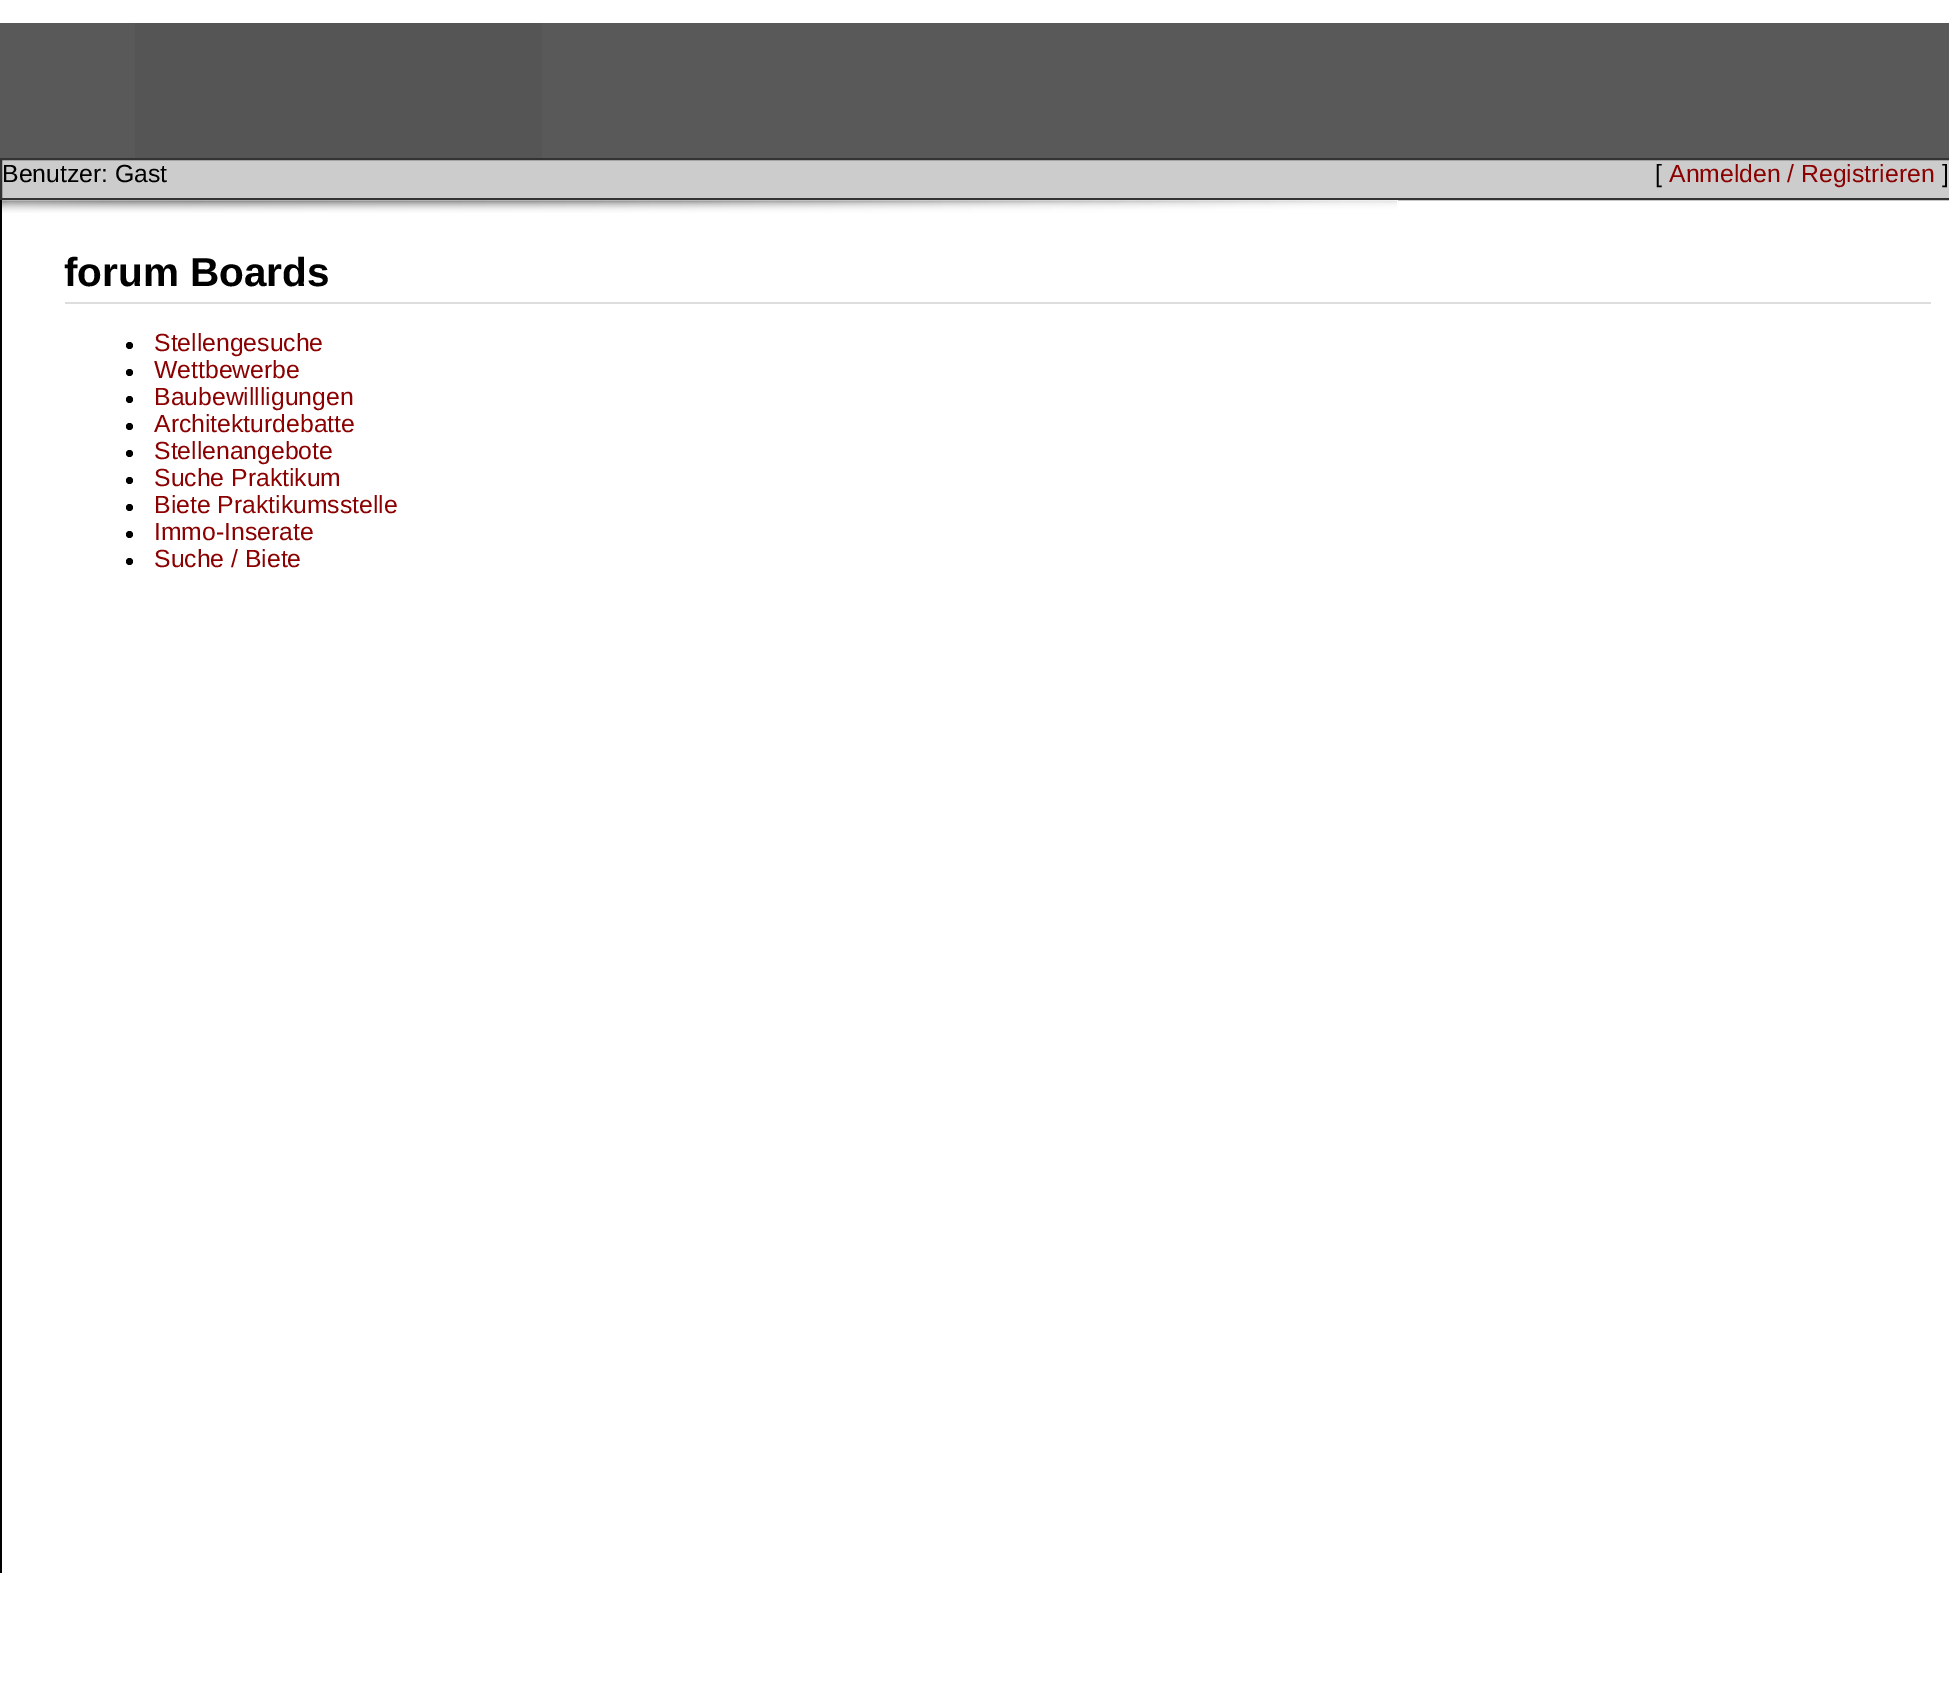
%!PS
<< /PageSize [1949 1703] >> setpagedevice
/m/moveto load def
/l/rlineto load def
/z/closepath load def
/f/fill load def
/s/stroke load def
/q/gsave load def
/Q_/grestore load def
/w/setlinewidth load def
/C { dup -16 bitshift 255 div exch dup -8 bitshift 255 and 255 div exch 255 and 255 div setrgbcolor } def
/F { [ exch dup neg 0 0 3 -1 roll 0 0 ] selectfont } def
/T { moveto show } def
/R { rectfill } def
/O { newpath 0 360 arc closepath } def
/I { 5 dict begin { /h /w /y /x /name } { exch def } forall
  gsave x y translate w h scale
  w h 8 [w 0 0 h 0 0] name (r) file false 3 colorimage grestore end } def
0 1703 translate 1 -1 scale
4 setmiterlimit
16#FFFFFF C
0 0 1949 1703 R
16#595959 C
0 23 1949 135 R
16#555555 C
135 23 407 135 R
16#CCCCCC C
1 159 m 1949 0 l 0 40 l -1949 0 l z q f Q_
16#333333 C
2 w
s
/LiberationSans-Regular 24.75 F
16#000000 C
(Benutzer: Gast) 2 182 T
([) 1655 182 T
16#8B0000 C
(Anmelden / Registrieren) 1669 182 T
16#000000 C
(]) 1942 182 T
0 200 2 1373 R
(1.rgb) 2 200 1396 13 I
16#DDDDDD C
65 302 1866 2 R
/LiberationSans-Bold 40.5 F
16#000000 C
(forum Boards) 64 286 T
129.5 345.5 3.5 O f
/LiberationSans-Regular 24.75 F
16#8B0000 C
(Stellengesuche) 154 351 T
16#000000 C
129.5 372.5 3.5 O f
16#8B0000 C
(Wettbewerbe) 154 378 T
16#000000 C
129.5 399.5 3.5 O f
16#8B0000 C
(Baubewillligungen) 154 405 T
16#000000 C
129.5 426.5 3.5 O f
16#8B0000 C
(Architekturdebatte) 154 432 T
16#000000 C
129.5 453.5 3.5 O f
16#8B0000 C
(Stellenangebote) 154 459 T
16#000000 C
129.5 480.5 3.5 O f
16#8B0000 C
(Suche Praktikum) 154 486 T
16#000000 C
129.5 507.5 3.5 O f
16#8B0000 C
(Biete Praktikumsstelle) 154 513 T
16#000000 C
129.5 534.5 3.5 O f
16#8B0000 C
(Immo-Inserate) 154 540 T
16#000000 C
129.5 561.5 3.5 O f
16#8B0000 C
(Suche / Biete) 154 567 T
showpage
